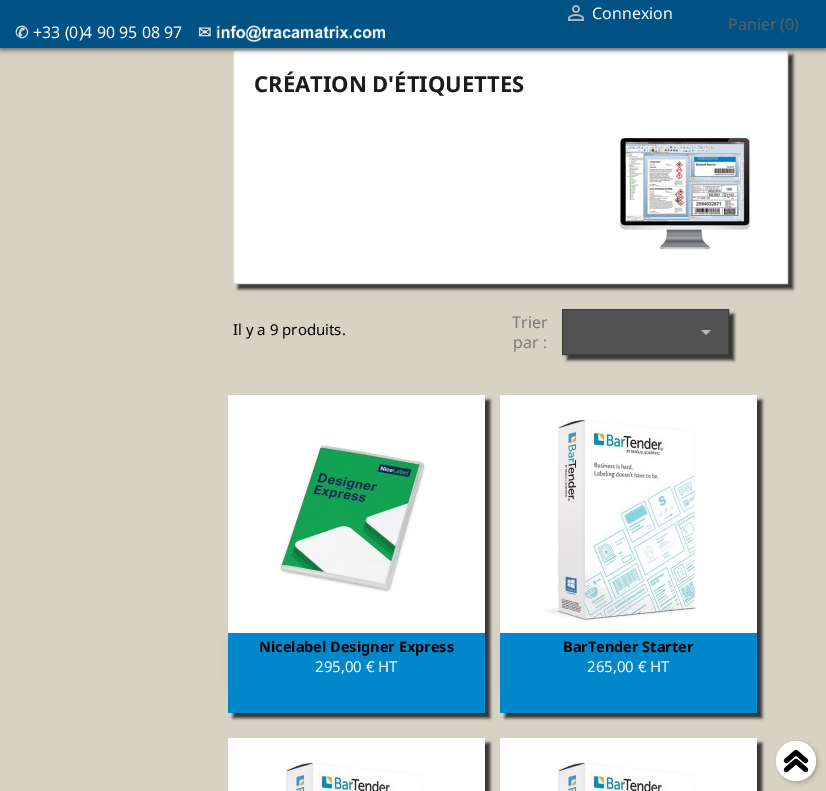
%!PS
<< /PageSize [826 791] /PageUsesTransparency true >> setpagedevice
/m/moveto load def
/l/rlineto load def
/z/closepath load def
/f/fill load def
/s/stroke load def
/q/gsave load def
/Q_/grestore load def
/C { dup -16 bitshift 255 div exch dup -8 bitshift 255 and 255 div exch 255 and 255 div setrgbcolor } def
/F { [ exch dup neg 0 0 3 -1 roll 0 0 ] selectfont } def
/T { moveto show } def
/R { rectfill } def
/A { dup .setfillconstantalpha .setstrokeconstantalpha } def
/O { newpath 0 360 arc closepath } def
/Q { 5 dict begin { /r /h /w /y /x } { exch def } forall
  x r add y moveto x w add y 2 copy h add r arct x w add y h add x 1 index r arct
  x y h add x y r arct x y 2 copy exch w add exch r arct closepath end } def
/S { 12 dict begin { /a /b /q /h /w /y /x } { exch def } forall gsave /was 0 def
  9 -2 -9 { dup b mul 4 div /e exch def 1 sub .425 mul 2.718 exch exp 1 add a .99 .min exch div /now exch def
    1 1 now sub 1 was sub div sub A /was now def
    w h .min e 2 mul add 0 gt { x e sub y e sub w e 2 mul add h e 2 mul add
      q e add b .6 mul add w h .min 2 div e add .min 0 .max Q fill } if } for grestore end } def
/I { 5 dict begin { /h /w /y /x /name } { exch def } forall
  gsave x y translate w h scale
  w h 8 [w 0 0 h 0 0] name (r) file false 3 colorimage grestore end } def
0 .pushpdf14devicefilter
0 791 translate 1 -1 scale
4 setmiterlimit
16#D6D2C4 C
0 0 826 791 R
16#000000 C
238 55 555 234 0 1.5 .75 S
16#FFFFFF C
233.5 50.5 m 554 0 l 0 233 l -554 0 l z q f Q_
16#DFDFDF C
s
16#000000 C
0 2 826 48 0 2.5 .51 S
16#005284 C
0 0 826 48 R
/DejaVuSans-Bold 16 F
16#DEDEDE C
(✆) 15 38 T
/NotoSans-Regular 16 F
16#FFFFFF C
(+33 \(0\)4 90 95 08 97) 33 38 T
/DejaVuSans-Bold 16 F
16#DEDEDE C
(✉) 198 38 T
(1.rgb) 216 25 169 17 I
(2.rgb) 568 5 16 16 I
/NotoSans-Regular 16 F
16#FFFFFF C
(Connexion) 592 19 T
16#5F5F5F C
(Panier \(0\)) 728 30 T
/NotoSans-Bold 22 F
16#1C1C1E C
(CRÉATION D'ÉTIQUETTES) 254 92 T
(3.rgb) 619 137 131 113 I
/NotoSans-Regular 15 F
16#000000 C
(Il y a 9 produits.) 233 335 T
/NotoSans-Regular 16 F
16#7A7A7A C
(Trier) 512 328 T
(par :) 513 348 T
16#000000 C
567 314 167 46 0 1.5 .75 S
16#525252 C
562.5 309.5 m 166 0 l 0 45 l -166 0 l z q f Q_
16#3E3E3E C
s
16#B7B7B7 C
701 330 m 10 0 l -5 5 l z f
16#000000 C
233 400 257 318 0 1.5 .75 S
16#FFFFFF C
228 395 257 238 R
(4.rgb) 276 443 151 149 I
16#000000 C
233 643 247 40 0 5 .2 S
16#0087CB C
228 633 257 80 R
/NotoSans-Bold 14.5 F
16#000000 C
(Nicelabel Designer Express) 259 652 T
/NotoSans-Regular 15 F
16#FFFFFF C
(295,00 € HT) 315 672 T
16#000000 C
505 400 257 318 0 1.5 .75 S
16#FFFFFF C
500 395 257 238 R
(5.rgb) 544 419 159 205 I
16#000000 C
505 643 247 40 0 5 .2 S
16#0087CB C
500 633 257 80 R
/NotoSans-Bold 14.5 F
16#000000 C
(BarTender Starter) 563 652 T
/NotoSans-Regular 15 F
16#FFFFFF C
(265,00 € HT) 587 672 T
16#000000 C
233 743 257 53 0 1.5 .75 S
16#FFFFFF C
228 738 257 53 R
(6.rgb) 284 762 139 29 I
16#000000 C
505 743 257 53 0 1.5 .75 S
16#FFFFFF C
500 738 257 53 R
(6.rgb) 556 762 139 29 I
16#000000 C
778 743 40 40 20 2 .2 S
16#FFFFFF C
796 761 20 O f
(7.rgb) 783 749 26 24 I
.poppdf14devicefilter showpage
